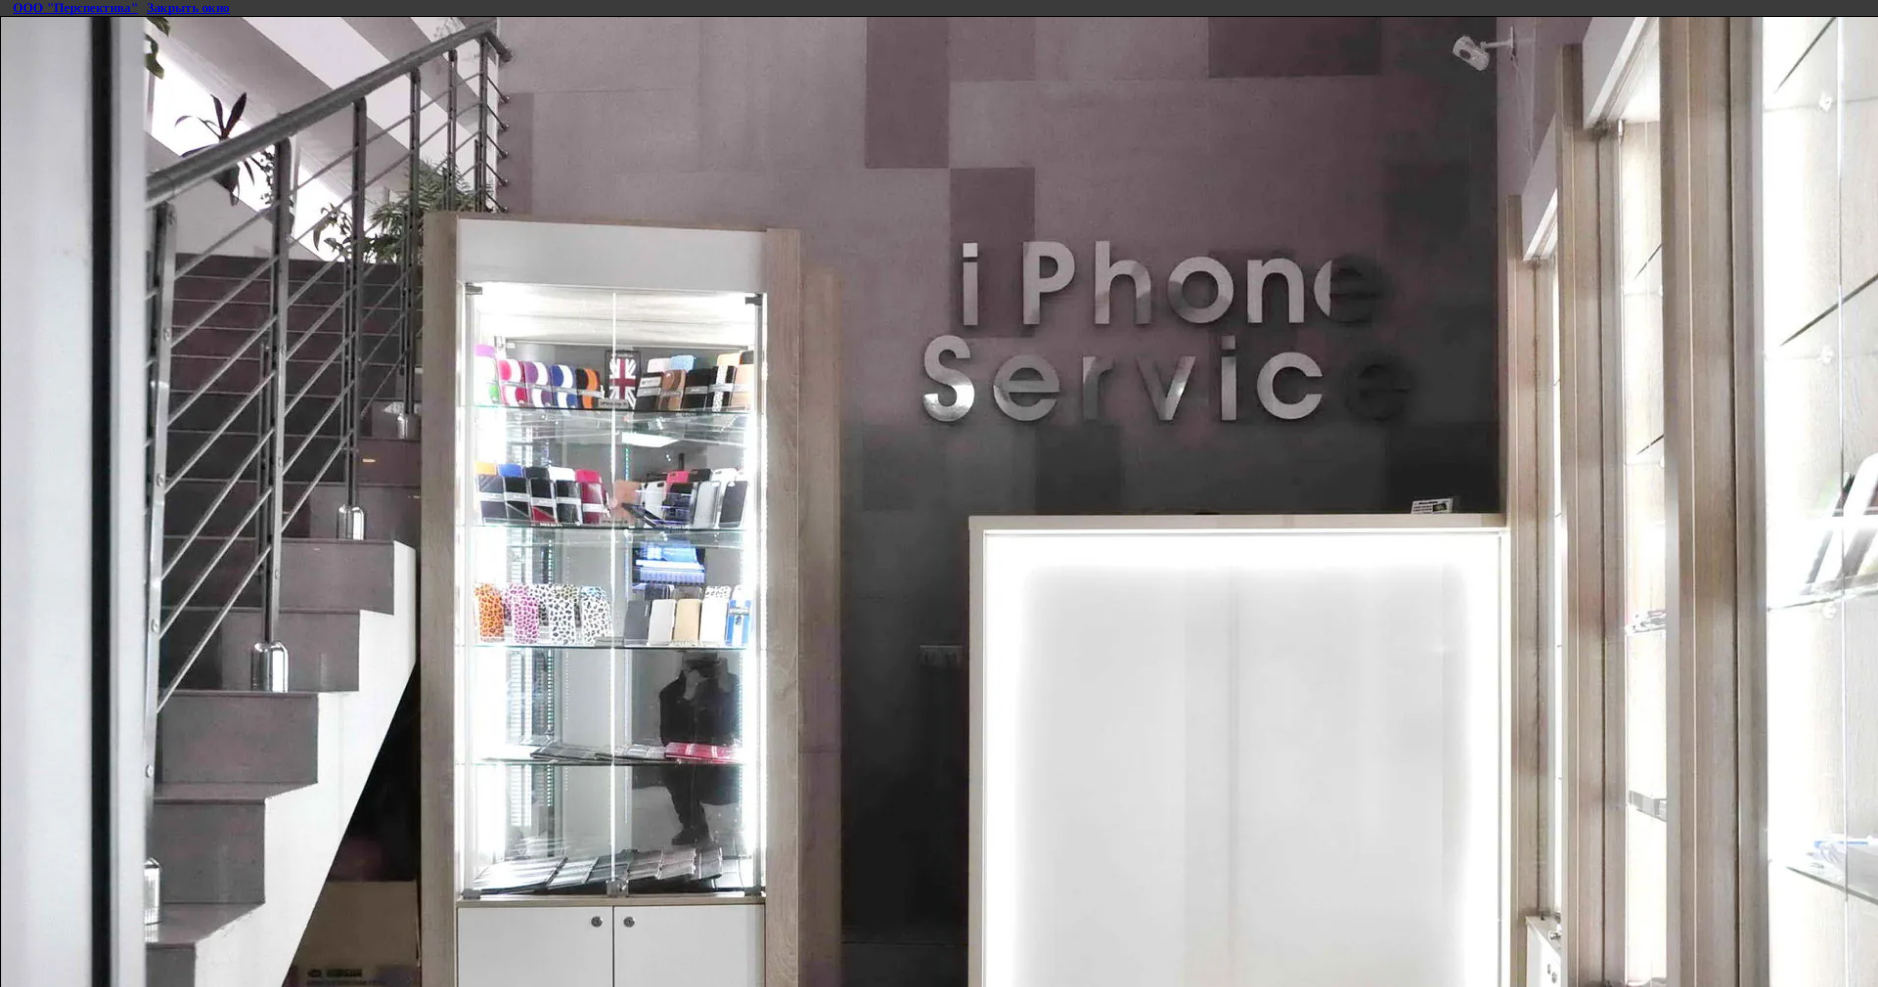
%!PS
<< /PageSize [1878 987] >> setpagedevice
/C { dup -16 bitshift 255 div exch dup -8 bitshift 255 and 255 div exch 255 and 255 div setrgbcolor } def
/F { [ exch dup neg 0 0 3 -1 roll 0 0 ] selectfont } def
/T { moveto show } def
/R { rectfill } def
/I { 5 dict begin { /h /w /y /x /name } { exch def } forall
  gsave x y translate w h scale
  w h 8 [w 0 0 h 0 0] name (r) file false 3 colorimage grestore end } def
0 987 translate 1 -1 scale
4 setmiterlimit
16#FFFFFF C
0 0 1878 987 R
(1.rgb) 0 0 1878 16 I
16#0000CC C
13 13 125 1 R
/LiberationSerif-Bold 13 F
(ООО "Перспектива") 13 12 T
147 13 83 1 R
(Закрыть окно) 147 12 T
16#000000 C
.5 16.5 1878 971 rectstroke
(2.rgb) 1 17 1877 970 I
showpage
